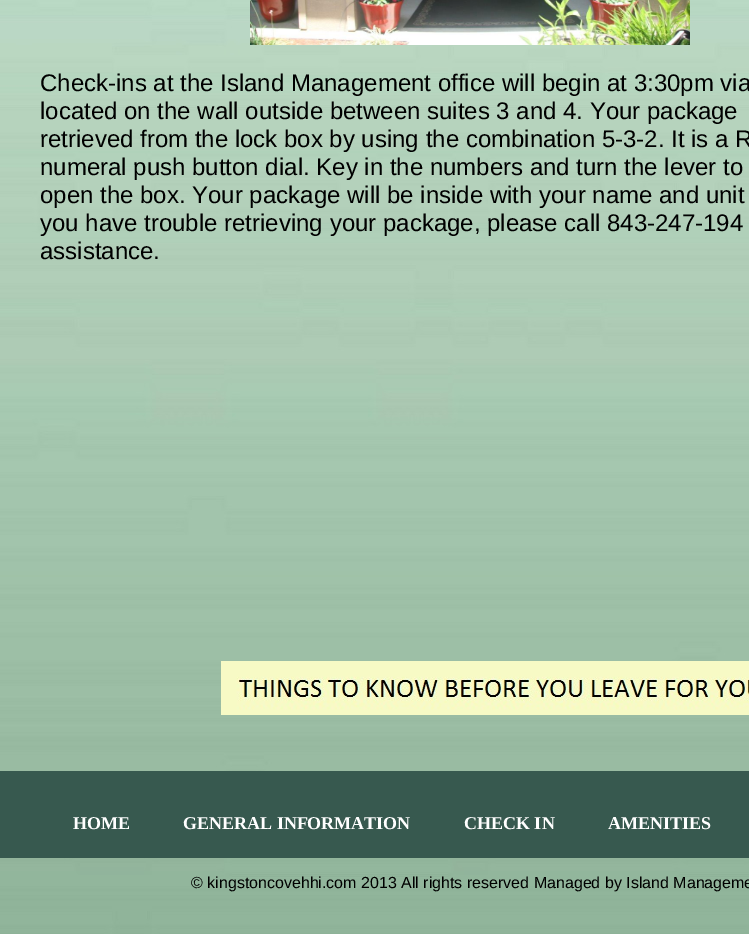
%!PS
<< /PageSize [749 934] >> setpagedevice
/C { dup -16 bitshift 255 div exch dup -8 bitshift 255 and 255 div exch 255 and 255 div setrgbcolor } def
/F { [ exch dup neg 0 0 3 -1 roll 0 0 ] selectfont } def
/T { moveto show } def
/R { rectfill } def
/I { 5 dict begin { /h /w /y /x /name } { exch def } forall
  gsave x y translate w h scale
  w h 8 [w 0 0 h 0 0] name (r) file false 3 colorimage grestore end } def
0 934 translate 1 -1 scale
4 setmiterlimit
16#FFFFFF C
0 0 749 934 R
(1.rgb) 0 0 749 934 I
(2.rgb) 250 0 440 45 I
/LiberationSans-Regular 24 F
16#000000 C
(Check-ins at the Island Management office will begin at 3:30pm via) 40 91 T
(located on the wall outside between suites 3 and 4. Your package) 40 119 T
(retrieved from the lock box by using the combination 5-3-2. It is a R) 40 147 T
(numeral push button dial. Key in the numbers and turn the lever to) 40 175 T
(open the box. Your package will be inside with your name and unit) 40 203 T
(you have trouble retrieving your package, please call 843-247-194) 40 231 T
(assistance.) 40 259 T
(3.rgb) 221 661 528 54 I
16#37594F C
0 771 749 87 R
/LiberationSerif-Bold 18 F
16#FFFFFF C
(HOME) 73 829 T
(GENERAL INFORMATION) 183 829 T
(CHECK IN) 464 829 T
(AMENITIES) 608 829 T
/LiberationSans-Regular 16 F
16#000000 C
(© kingstoncovehhi.com 2013 All rights reserved Managed by Island Manageme) 191 888 T
showpage
